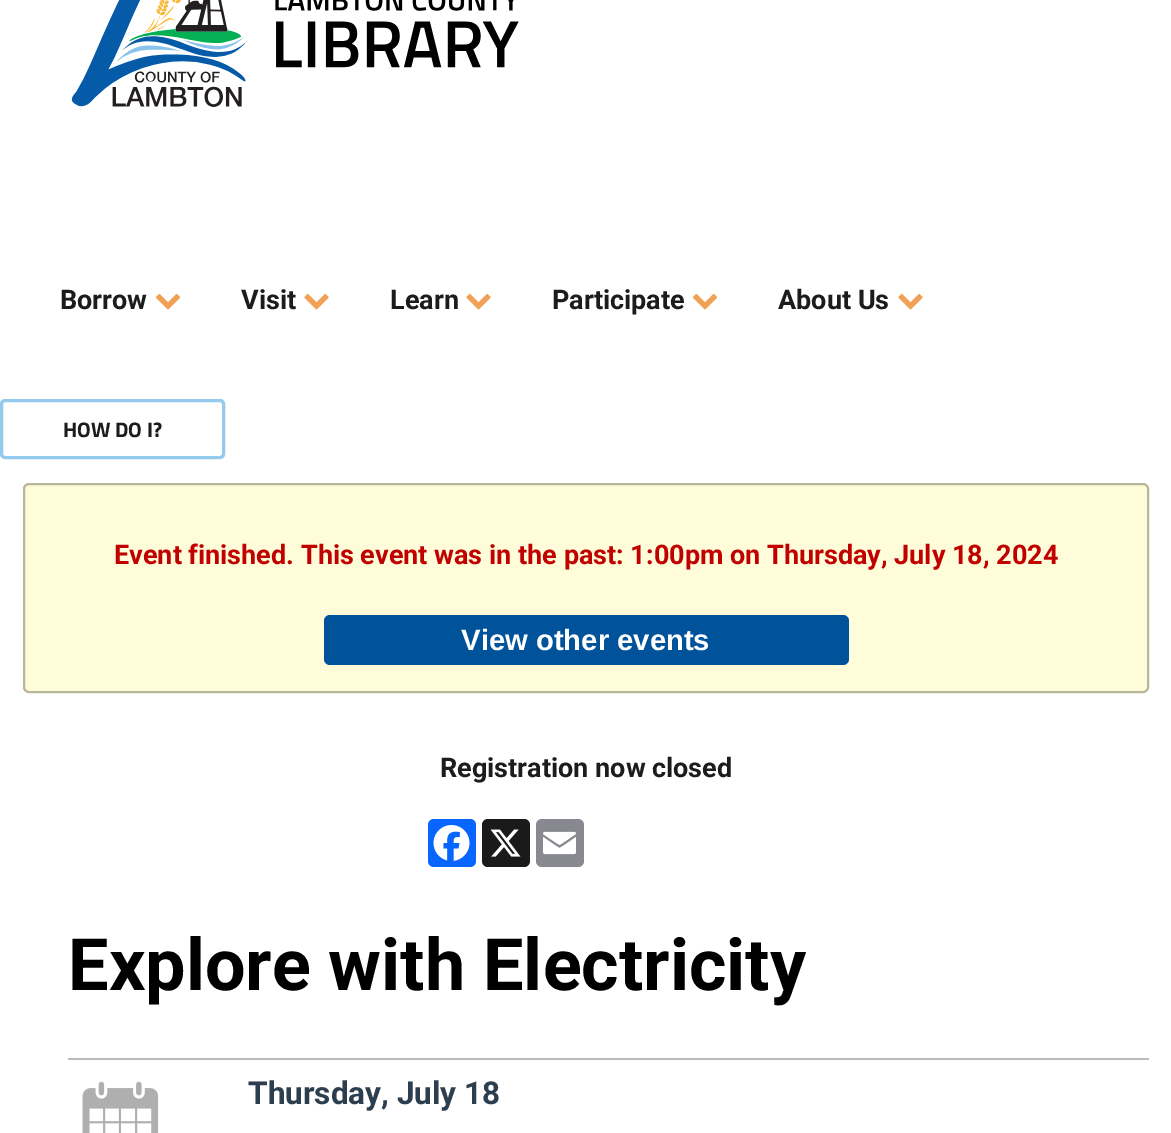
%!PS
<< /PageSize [1171 1133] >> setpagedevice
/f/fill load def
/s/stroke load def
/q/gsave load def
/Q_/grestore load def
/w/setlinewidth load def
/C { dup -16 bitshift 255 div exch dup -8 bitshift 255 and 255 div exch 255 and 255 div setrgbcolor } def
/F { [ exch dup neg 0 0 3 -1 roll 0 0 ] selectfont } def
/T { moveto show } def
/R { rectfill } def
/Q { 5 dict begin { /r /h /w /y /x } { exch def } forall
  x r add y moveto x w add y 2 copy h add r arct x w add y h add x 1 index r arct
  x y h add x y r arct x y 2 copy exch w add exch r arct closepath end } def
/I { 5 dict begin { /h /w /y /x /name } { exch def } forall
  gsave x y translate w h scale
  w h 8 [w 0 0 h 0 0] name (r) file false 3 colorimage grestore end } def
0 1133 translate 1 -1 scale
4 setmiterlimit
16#FFFFFF C
0 0 1171 1133 R
(1.rgb) 71 0 448 107 I
/Roboto-Bold 27 F
16#1B1C1D C
(Borrow) 60 309 T
(2.rgb) 155 293 26 17 I
(Visit) 241 309 T
(3.rgb) 304 293 25 17 I
(Learn) 390 309 T
(3.rgb) 466 293 25 17 I
(Participate) 552 309 T
(2.rgb) 692 293 26 17 I
(About Us) 778 309 T
(3.rgb) 898 293 25 17 I
16#94CAED C
3 w
1.5 400.5 222 57 3.5 Q s
/TitilliumWeb-Bold 21 F
16#1B1C1D C
(HOW DO I?) 63 437 T
16#FFFDD9 C
24 484 1124 208 5 Q q f Q_
16#B8B79A C
2 w
s
/Roboto-Bold 27 F
16#C10000 C
(Event finished. This event was in the past: 1:00pm on Thursday, July 18, 2024) 114 564 T
16#00529B C
324 615 525 50 6 Q f
/LiberationSans-Bold 29.25 F
16#FFFFFF C
(View other events) 461 650 T
/Roboto-Bold 27 F
16#1B1C1D C
(Registration now closed) 440 777 T
16#0866FF C
428 819 48 48 6 Q f
(4.rgb) 433 825 37 36 I
16#1A1A1A C
482 819 48 48 6 Q f
(5.rgb) 490 829 31 28 I
16#888990 C
536 819 48 48 6 Q f
(6.rgb) 543 831 33 24 I
/Roboto-Bold 72 F
16#000000 C
(Explore with Electricity) 68 990 T
16#BBBBBB C
68 1058 1081 2 R
(7.rgb) 82 1081 77 52 I
/Roboto-Bold 31.5 F
16#2D3E4F C
(Thursday, July 18) 248 1104 T
showpage
